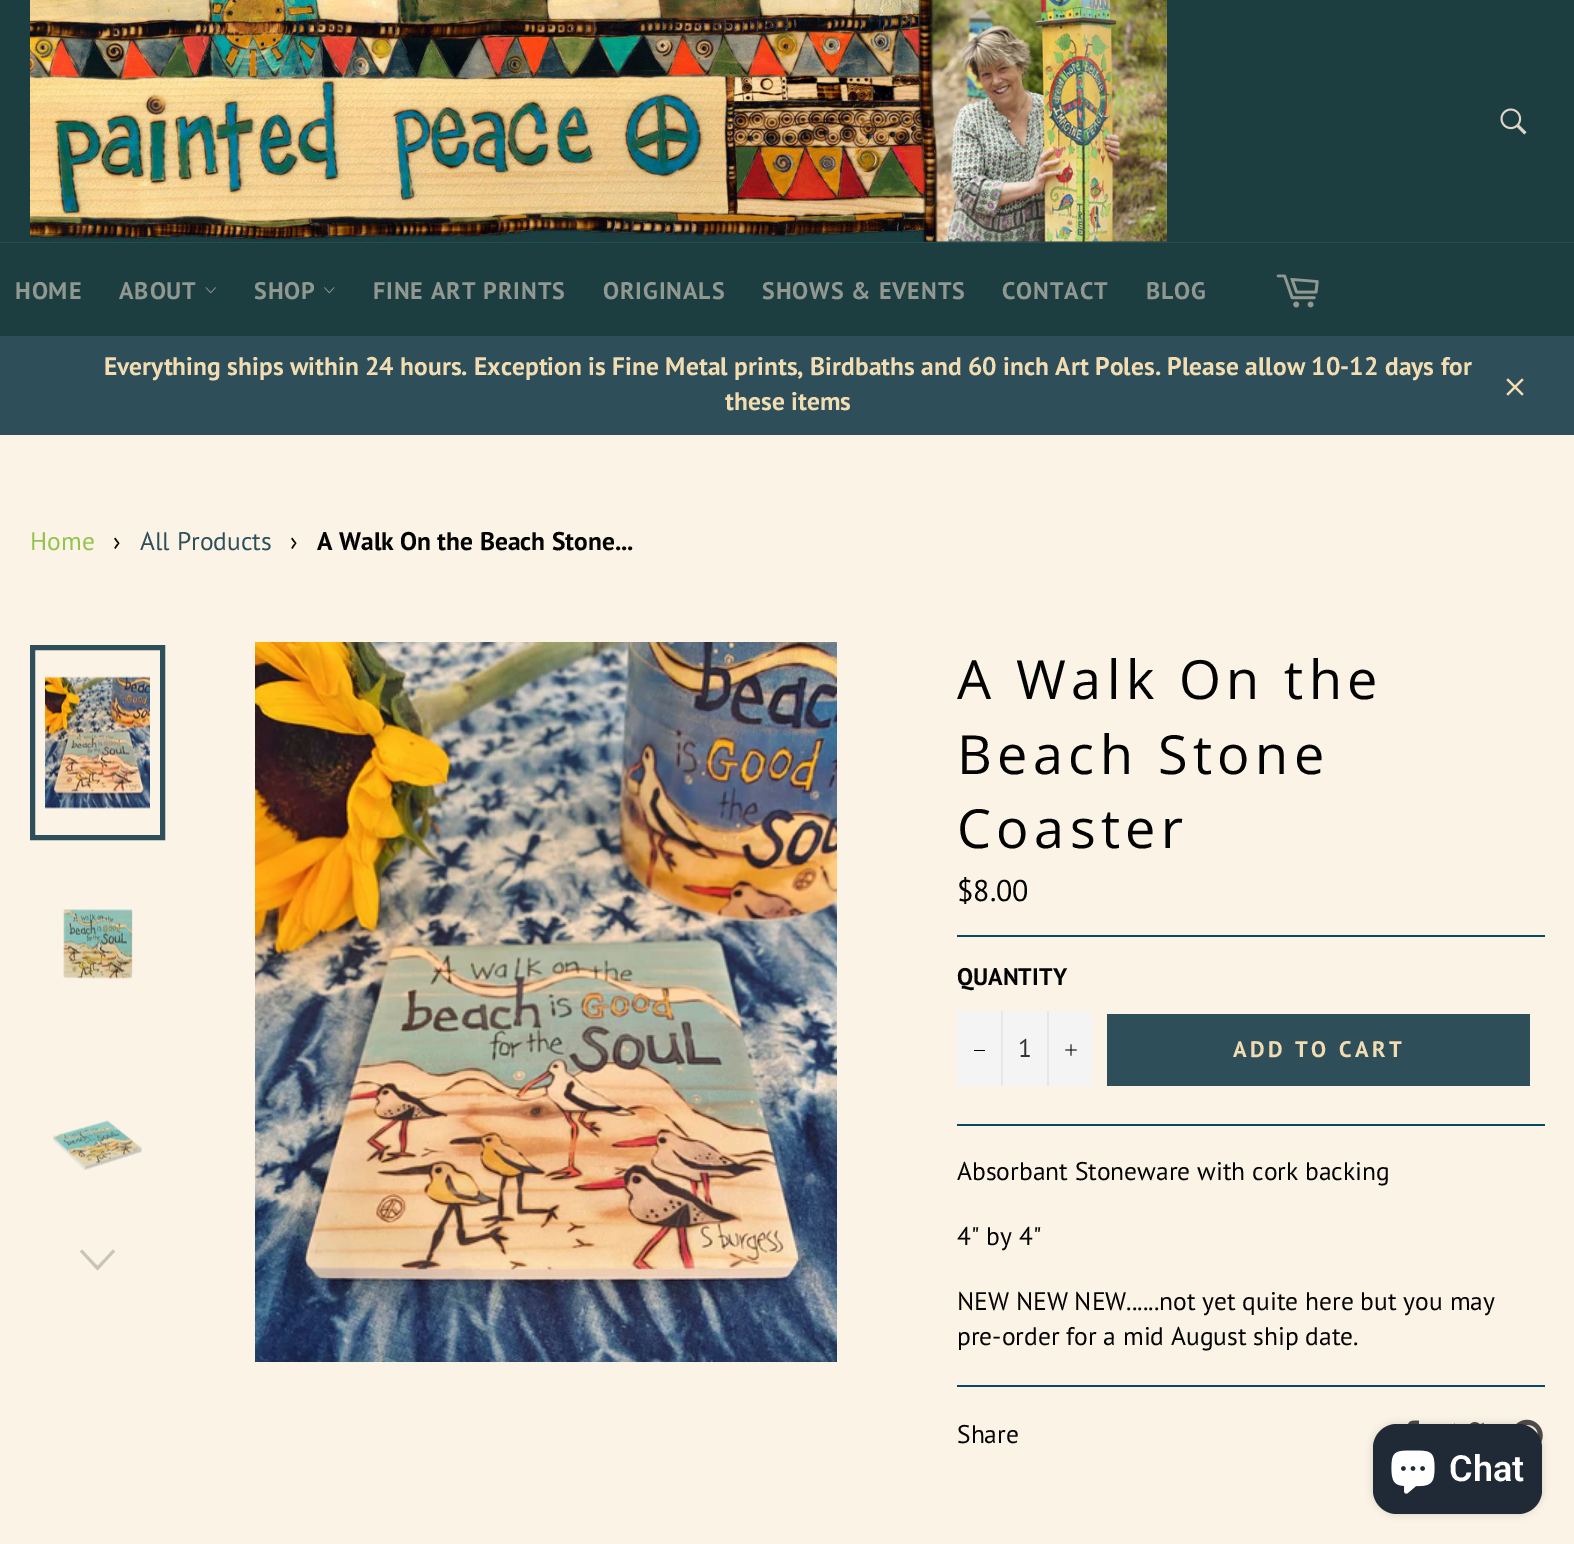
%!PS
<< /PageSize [1574 1544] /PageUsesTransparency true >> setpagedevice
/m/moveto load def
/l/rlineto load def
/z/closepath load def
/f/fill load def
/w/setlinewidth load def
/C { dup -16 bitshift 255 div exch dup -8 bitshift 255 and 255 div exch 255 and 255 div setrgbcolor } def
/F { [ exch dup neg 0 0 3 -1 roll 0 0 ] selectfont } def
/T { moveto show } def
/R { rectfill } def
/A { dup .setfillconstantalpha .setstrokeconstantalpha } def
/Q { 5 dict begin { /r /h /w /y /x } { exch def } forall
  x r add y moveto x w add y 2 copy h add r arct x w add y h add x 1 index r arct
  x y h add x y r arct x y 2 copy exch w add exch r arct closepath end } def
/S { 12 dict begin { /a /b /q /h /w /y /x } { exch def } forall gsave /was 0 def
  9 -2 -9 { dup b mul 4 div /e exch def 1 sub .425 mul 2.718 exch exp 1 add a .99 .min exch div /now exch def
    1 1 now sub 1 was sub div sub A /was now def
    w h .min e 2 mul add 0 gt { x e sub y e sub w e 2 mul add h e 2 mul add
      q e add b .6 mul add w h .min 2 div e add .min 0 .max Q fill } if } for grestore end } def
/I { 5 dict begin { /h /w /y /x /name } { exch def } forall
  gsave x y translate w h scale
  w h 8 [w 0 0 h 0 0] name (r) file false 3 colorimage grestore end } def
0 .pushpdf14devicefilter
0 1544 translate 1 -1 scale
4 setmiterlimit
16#1C3E40 C
0 0 1574 1544 R
(1.rgb) 30 0 1137 242 I
(2.rgb) 1500 108 27 27 I
16#244F52 C
0 242 1574 1 R
/PTSans-Bold 24 F
16#919892 C
15 299 m .9 0 (HOME) ashow
119 299 m .9 0 (ABOUT) ashow
(3.rgb) 205 287 11 7 I
254 299 m .9 0 (SHOP) ashow
(4.rgb) 324 287 11 7 I
373 299 m .9 0 (FINE ART PRINTS) ashow
603 299 m .9 0 (ORIGINALS) ashow
762 299 m .9 0 (SHOWS & EVENTS) ashow
1002 299 m .9 0 (CONTACT) ashow
1146 299 m .9 0 (BLOG) ashow
(5.rgb) 1276 274 43 34 I
16#2E4E59 C
0 336 1574 99 R
/PTSans-Bold 25.5 F
16#F2DCB1 C
(Everything ships within 24 hours. Exception is Fine Metal prints, Birdbaths and 60 inch Art Poles. Please allow 10-12 days for) 104 375 T
(these items) 725 410 T
(6.rgb) 1506 378 18 18 I
16#FAF3E6 C
0 435 1574 1109 R
/PTSans-Regular 25.5 F
16#93C24F C
(Home) 30 550 T
16#030303 C
(›) 113 550 T
16#2E4E59 C
(All Products) 140 550 T
16#030303 C
(›) 290 550 T
/PTSans-Bold 25.5 F
(A Walk On the Beach Stone...) 317 550 T
(7.rgb) 45 676 105 133 I
16#2E4E59 C
5 w
32.5 647.5 130 190 rectstroke
(8.rgb) 63 909 70 70 I
(9.rgb) 53 1120 89 50 I
16#C9C3B9 C
113 1249.5 m 2 2 l -17.5 19 l -17.5 -19 l 2 -2 l 15.5 16.5 l z f
(10.rgb) 255 642 582 720 I
/OpenSans-Regular 54 F
16#030303 C
957 699 m 5.4 0 (A Walk On the) ashow
957 774 m 5.4 0 (Beach Stone) ashow
957 848 m 5.4 0 (Coaster) ashow
/PTSans-Regular 30 F
($8.00) 957 901 T
16#064A63 C
957 935 588 2 R
/PTSans-Bold 24 F
16#030303 C
(QUANTITY) 957 985 T
16#F4F4F4 C
957 1011 135 75 R
16#E7E7E7 C
1001 1011 2 75 R
16#030303 C
974 1050 11 1 R
/PTSans-Regular 25.5 F
16#333333 C
(1) 1018 1057 T
16#E7E7E7 C
1047 1011 2 75 R
(11.rgb) 1065 1044 12 12 I
16#2E4E59 C
1107 1014 423 72 R
/PTSans-Bold 22.5 F
16#F2DCB1 C
1233 1057 m 3.4 0 (ADD TO CART) ashow
16#064A63 C
957 1124 588 2 R
/PTSans-Regular 25.5 F
16#030303 C
(Absorbant Stoneware with cork backing) 957 1180 T
(4" by 4") 957 1245 T
(NEW NEW NEW......not yet quite here but you may) 957 1310 T
(pre-order for a mid August ship date.) 957 1345 T
16#064A63 C
957 1385 588 2 R
16#030303 C
(Share) 957 1443 T
(12.rgb) 1408 1420 11 4 I
(13.rgb) 1454 1422 30 2 I
(14.rgb) 1516 1419 27 24 I
16#000000 C
1373 1424 169 90 24 4 .15 S
16#202A36 C
1373 1424 169 90 24 Q f
(15.rgb) 1391 1450 44 44 I
/Roboto-SemiBold 36 F
16#FFFFFF C
(Chat) 1449 1481 T
.poppdf14devicefilter showpage
